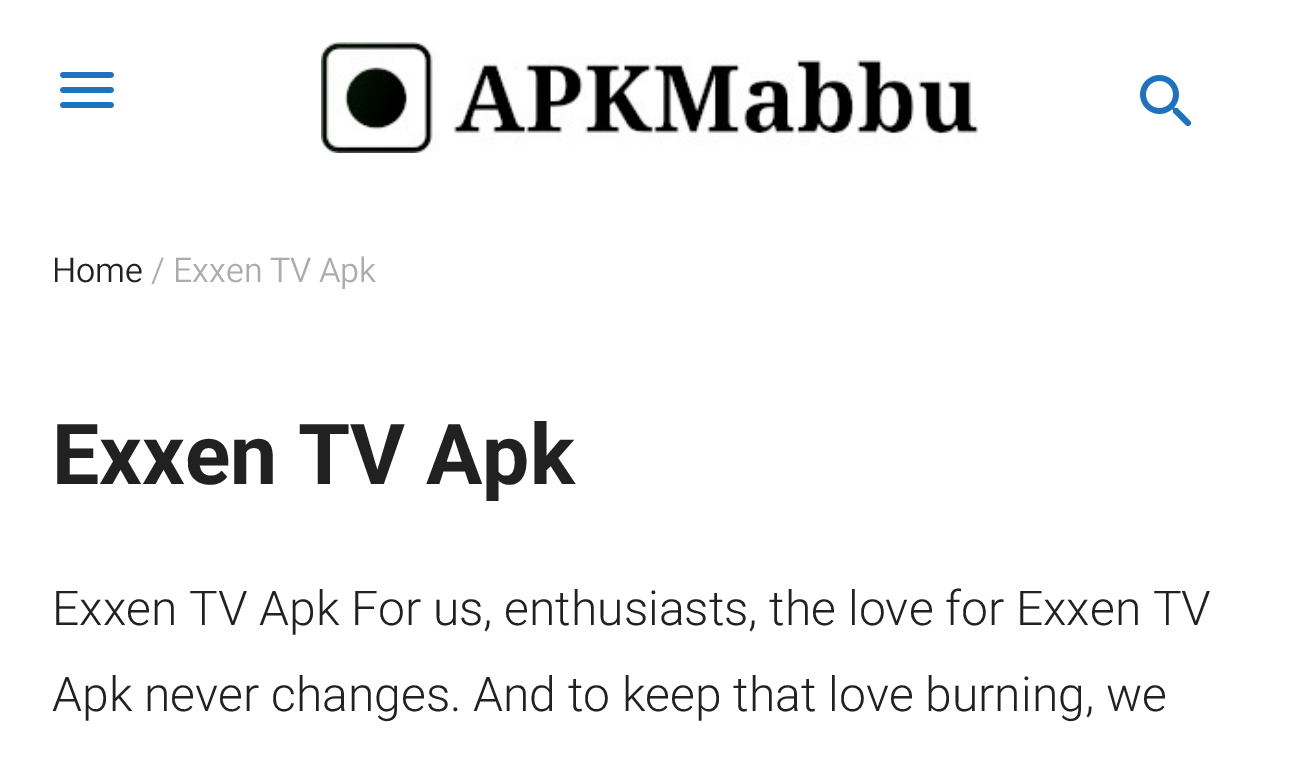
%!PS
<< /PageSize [1299 784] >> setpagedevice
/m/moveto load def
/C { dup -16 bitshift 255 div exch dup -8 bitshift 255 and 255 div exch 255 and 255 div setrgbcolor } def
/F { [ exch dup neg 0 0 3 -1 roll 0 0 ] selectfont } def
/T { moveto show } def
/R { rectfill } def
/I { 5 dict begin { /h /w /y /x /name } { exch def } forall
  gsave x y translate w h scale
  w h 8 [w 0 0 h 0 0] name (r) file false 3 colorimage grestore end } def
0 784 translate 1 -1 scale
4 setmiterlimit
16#FFFFFF C
0 0 1299 784 R
(1.rgb) 60 72 54 36 I
(2.rgb) 321 42 657 111 I
(3.rgb) 1140 75 52 52 I
/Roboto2-Light 34 F
16#212121 C
(Home) 52 282 T
16#ACACAC C
(/) 151 282 T
173 282 m -1 0 32 (Exxen TV Apk) widthshow
/Roboto-Bold 84 F
16#212121 C
(Exxen TV Apk) 52 484 T
/Roboto-Light 48 F
(Exxen TV Apk For us, enthusiasts, the love for Exxen TV) 52 625 T
(Apk never changes. And to keep that love burning, we) 52 711 T
showpage
